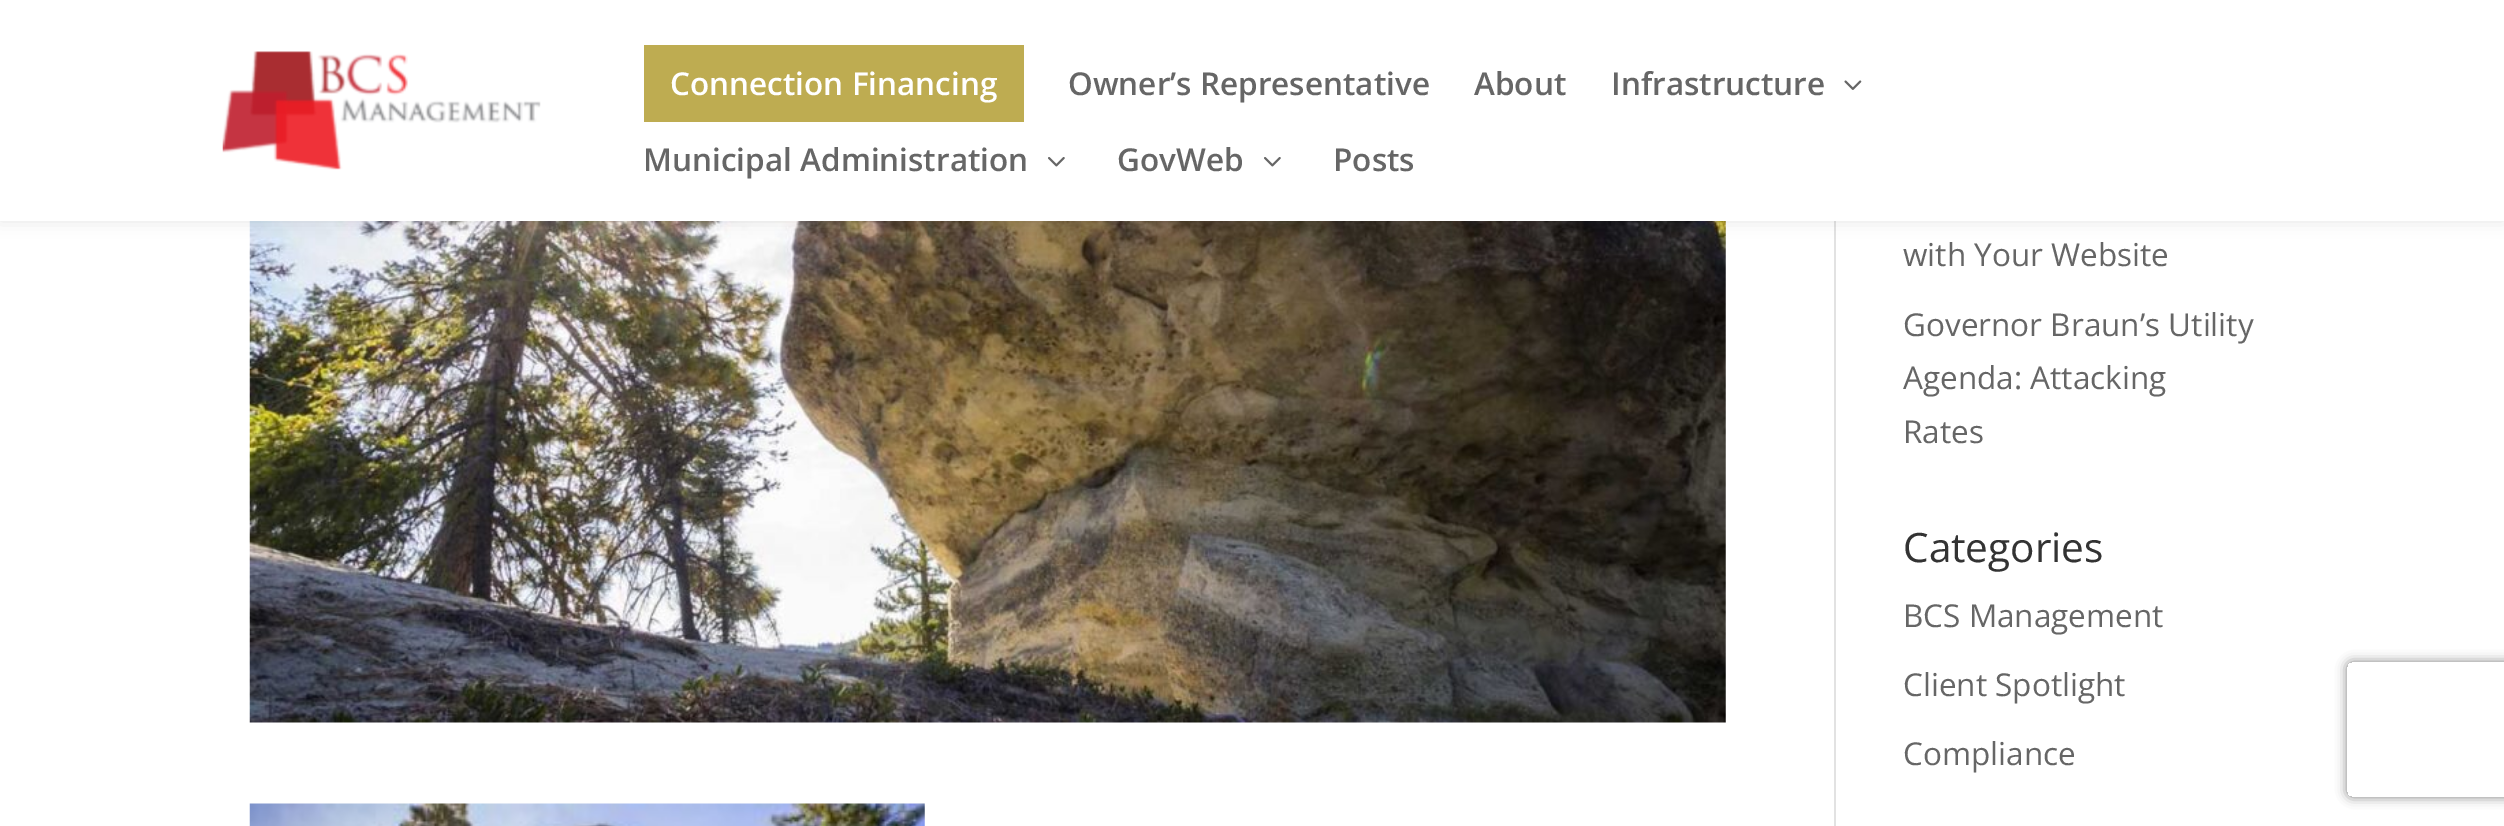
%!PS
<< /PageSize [2504 826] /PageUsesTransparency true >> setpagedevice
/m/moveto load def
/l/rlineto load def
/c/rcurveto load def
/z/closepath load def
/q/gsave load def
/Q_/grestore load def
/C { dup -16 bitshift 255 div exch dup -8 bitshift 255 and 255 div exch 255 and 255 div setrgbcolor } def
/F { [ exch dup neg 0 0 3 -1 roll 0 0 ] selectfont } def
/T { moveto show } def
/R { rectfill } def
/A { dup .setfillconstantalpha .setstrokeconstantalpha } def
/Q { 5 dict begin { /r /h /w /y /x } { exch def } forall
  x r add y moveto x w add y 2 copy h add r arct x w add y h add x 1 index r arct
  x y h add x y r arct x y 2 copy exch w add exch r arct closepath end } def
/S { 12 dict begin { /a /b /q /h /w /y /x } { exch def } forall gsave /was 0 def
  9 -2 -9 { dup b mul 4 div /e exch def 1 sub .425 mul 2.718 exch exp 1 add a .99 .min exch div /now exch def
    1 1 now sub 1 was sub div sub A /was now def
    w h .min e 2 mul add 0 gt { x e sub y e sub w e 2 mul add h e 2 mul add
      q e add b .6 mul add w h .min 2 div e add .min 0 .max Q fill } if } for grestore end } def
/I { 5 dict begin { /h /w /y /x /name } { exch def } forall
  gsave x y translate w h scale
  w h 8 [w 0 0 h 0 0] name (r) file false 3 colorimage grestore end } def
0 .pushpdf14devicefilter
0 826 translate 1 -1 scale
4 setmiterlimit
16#FFFFFF C
0 0 2504 826 R
16#E2E2E2 C
1834 221 2 605 R
(4.rgb) 249 221 1477 502 I
16#000000 C
0 0 2504 221 0 8 .1 S
16#FFFFFF C
0 0 2504 221 R
(1.rgb) 222 51 319 119 I
16#BEAC51 C
644 45 380 77 R
/OpenSans-SemiBold 31.5 F
16#FFFFFF C
(Connection Financing) 670 95 T
16#666666 C
(Owner’s Representative) 1068 95 T
(About) 1474 95 T
(Infrastructure) 1611 95 T
(2.rgb) 1844 80 18 10 I
(Municipal Administration) 643 171 T
(3.rgb) 1048 157 17 10 I
(GovWeb) 1117 171 T
(3.rgb) 1264 157 17 10 I
(Posts) 1333 171 T
(5.rgb) 249 803 676 23 I
/OpenSans-Regular 31.5 F
(with Your Website) 1903 266 T
(Governor Braun’s Utility) 1903 336 T
(Agenda: Attacking) 1903 389 T
(Rates) 1903 443 T
/OpenSans-Regular 40.5 F
16#333333 C
(Categories) 1903 562 T
/OpenSans-Regular 31.5 F
16#666666 C
(BCS Management) 1903 627 T
(Client Spotlight) 1903 696 T
(Compliance) 1903 765 T
q
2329 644 m 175 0 l 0 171 l -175 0 l z 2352 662 m 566 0 l 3 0 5 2 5 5 c 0 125 l 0 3 -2 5 -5 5 c -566 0 l -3 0 -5 -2 -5 -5 c 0 -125 l 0 -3 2 -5 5 -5 c z eoclip newpath
16#808080 C
2347 662 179 135 5 5.5 1 S
Q_
.poppdf14devicefilter showpage
